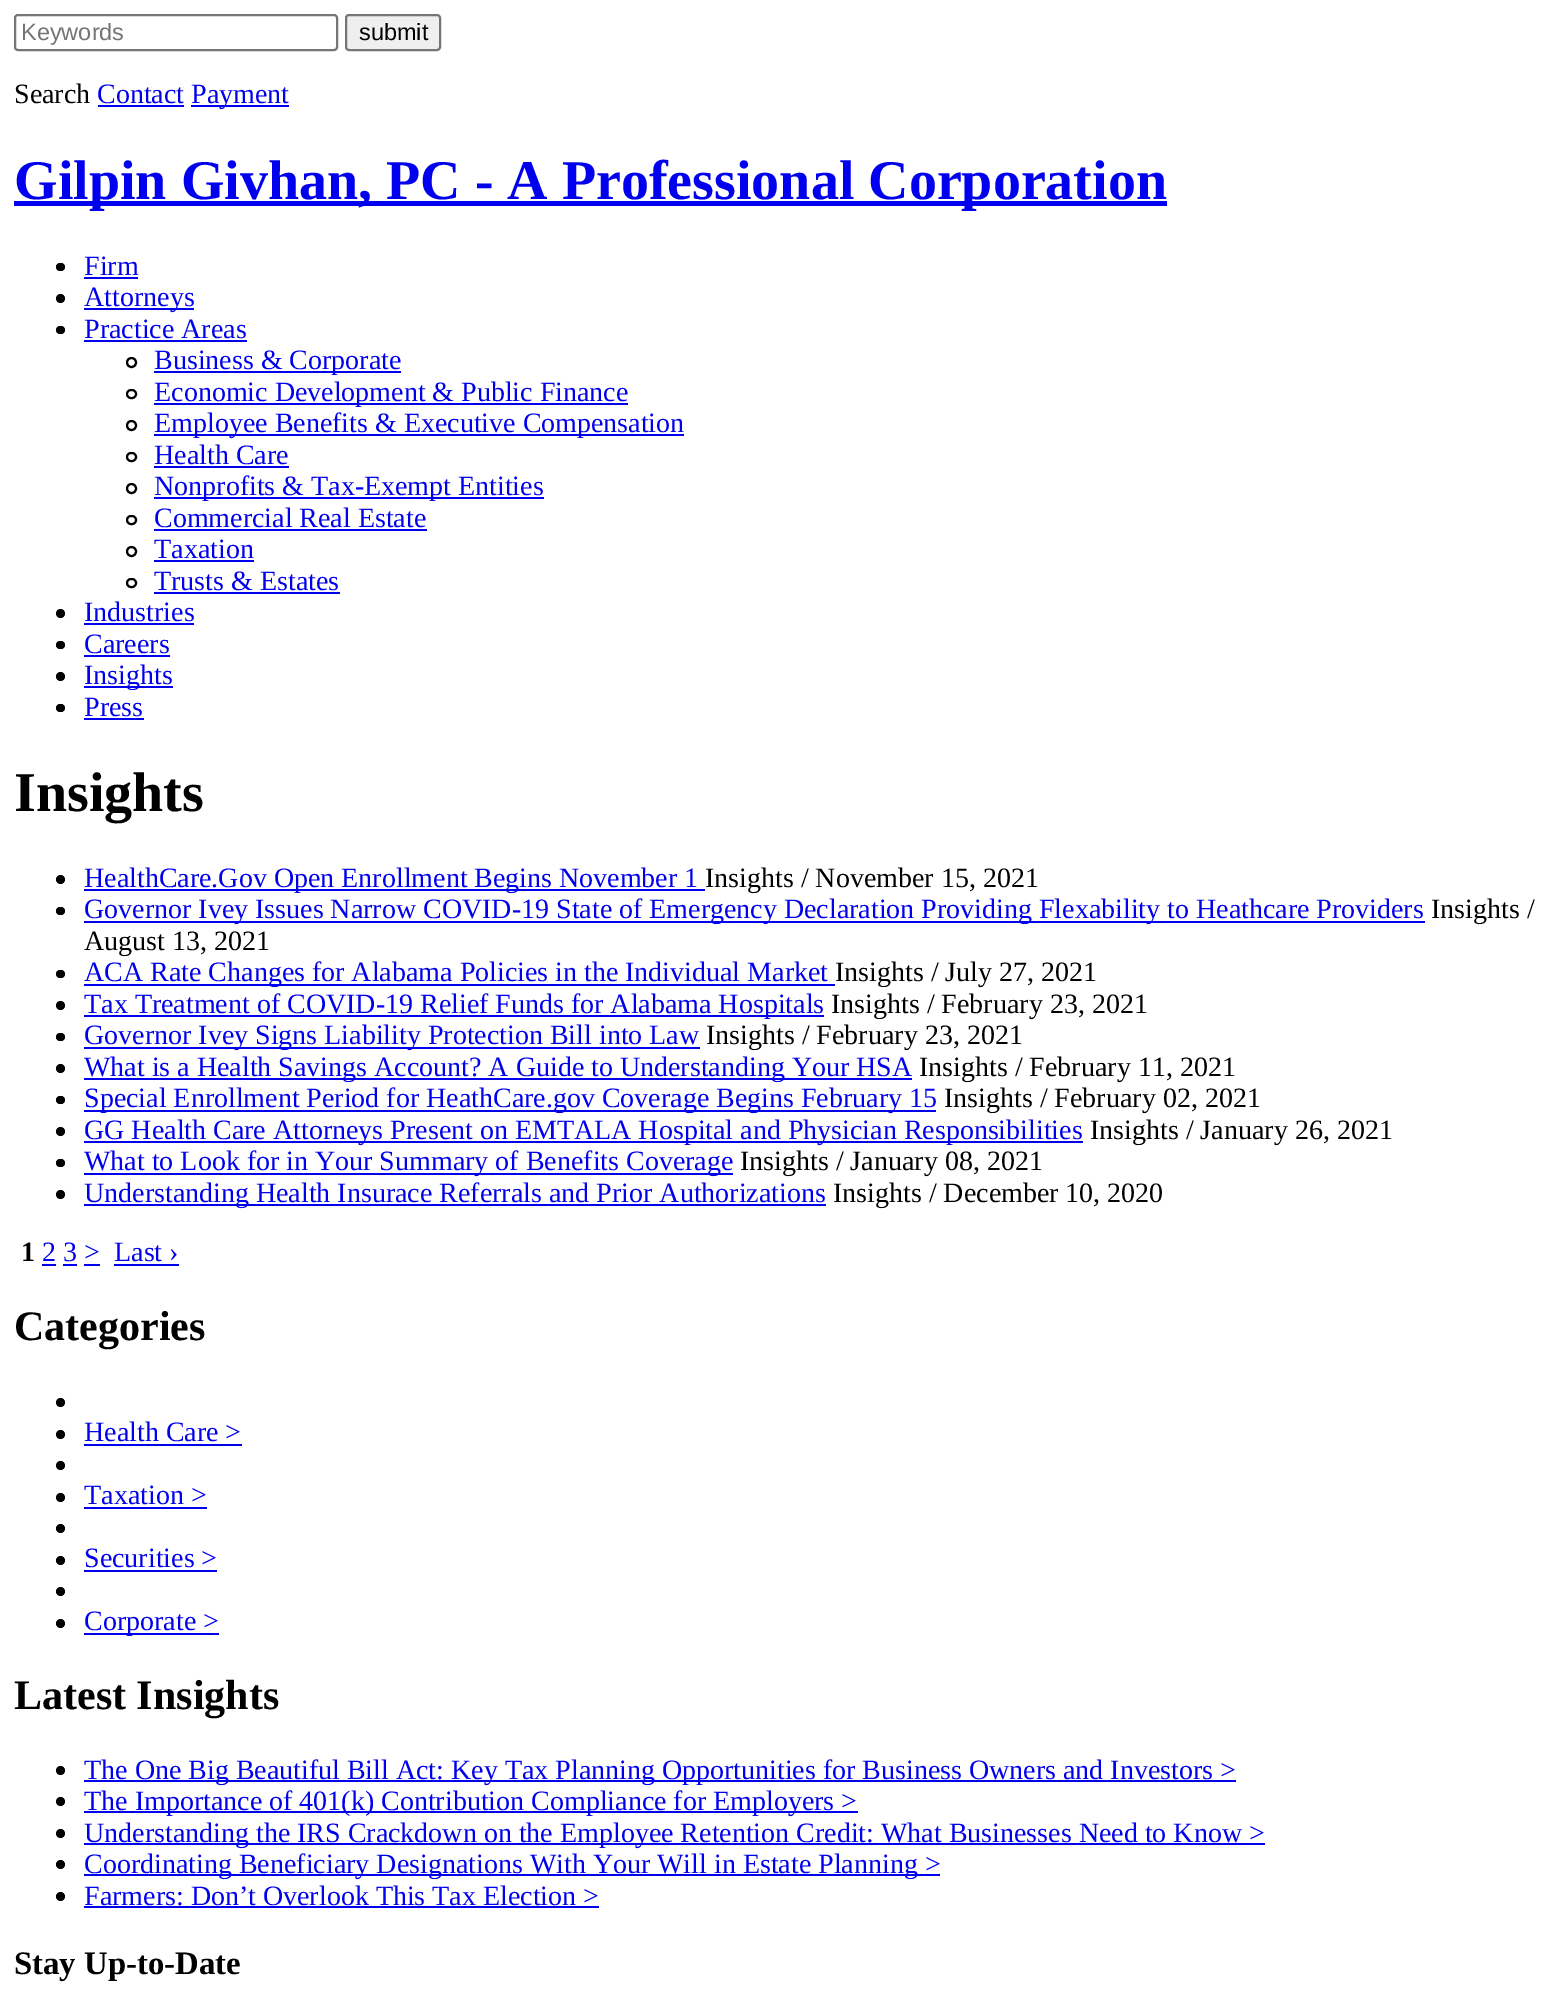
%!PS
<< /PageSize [1556 2009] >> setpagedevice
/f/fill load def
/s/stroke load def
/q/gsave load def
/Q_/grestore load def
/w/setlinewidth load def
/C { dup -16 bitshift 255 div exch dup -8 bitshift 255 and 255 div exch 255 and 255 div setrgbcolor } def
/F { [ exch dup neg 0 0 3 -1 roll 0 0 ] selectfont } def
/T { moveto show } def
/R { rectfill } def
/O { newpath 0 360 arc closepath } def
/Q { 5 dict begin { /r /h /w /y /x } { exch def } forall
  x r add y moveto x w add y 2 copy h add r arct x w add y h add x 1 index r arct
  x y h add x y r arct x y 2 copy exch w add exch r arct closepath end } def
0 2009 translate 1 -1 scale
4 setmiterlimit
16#FFFFFF C
0 0 1556 2009 R
16#767676 C
2 w
15 15 322 35 3 Q s
/LiberationSans-Regular 23.5 F
16#757575 C
(Keywords) 21 40 T
16#EFEFEF C
346 15 94 35 3 Q q f Q_
16#767676 C
s
16#000000 C
(submit) 359 40 T
/LiberationSerif-Regular 28 F
(Search) 14 103 T
16#0000EE C
(Contact) 97 103 T
98 105 86 2 R
191 105 98 2 R
(Payment) 191 103 T
14 201 1153 5 R
/LiberationSerif-Bold 56 F
(Gilpin Givhan, PC - A Professional Corporation) 14 199 T
16#000000 C
56 263 9 8 4 Q f
/LiberationSerif-Regular 28 F
16#0000EE C
(Firm) 84 275 T
84 277 54 2 R
16#000000 C
60.5 298.5 4.5 O f
16#0000EE C
84 308 110 2 R
(Attorneys) 84 306 T
16#000000 C
56 326 9 8 4 Q f
16#0000EE C
(Practice Areas) 84 338 T
84 340 163 2 R
16#000000 C
131.5 362.5 4.5 O s
16#0000EE C
154 371 247 2 R
(Business & Corporate) 154 369 T
16#000000 C
127 390 9 8 4 Q s
16#0000EE C
154 403 474 2 R
(Economic Development & Public Finance) 154 401 T
16#000000 C
131.5 425.5 4.5 O s
16#0000EE C
154 434 530 2 R
(Employee Benefits & Executive Compensation) 154 432 T
16#000000 C
127 453 9 8 4 Q s
16#0000EE C
(Health Care) 154 464 T
154 466 135 2 R
16#000000 C
131.5 488.5 4.5 O s
16#0000EE C
154 497 390 2 R
(Nonprofits & Tax-Exempt Entities) 154 495 T
16#000000 C
127 516 9 8 4 Q s
16#0000EE C
(Commercial Real Estate) 154 527 T
154 529 273 2 R
16#000000 C
131.5 551.5 4.5 O s
16#0000EE C
(Taxation) 154 558 T
154 560 100 2 R
16#000000 C
127 579 9 8 4 Q s
16#0000EE C
(Trusts & Estates) 154 590 T
154 592 186 2 R
16#000000 C
60.5 613.5 4.5 O f
16#0000EE C
(Industries) 84 621 T
84 623 110 2 R
16#000000 C
56 641 9 8 4 Q f
16#0000EE C
(Careers) 84 653 T
84 655 86 2 R
16#000000 C
60.5 676.5 4.5 O f
16#0000EE C
84 686 89 2 R
(Insights) 84 684 T
16#000000 C
56 704 9 8 4 Q f
16#0000EE C
(Press) 84 716 T
84 718 60 2 R
/LiberationSerif-Bold 56 F
16#000000 C
(Insights) 14 811 T
60.5 879.5 4.5 O f
16#0000EE C
84 889 621 2 R
/LiberationSerif-Regular 28 F
(HealthCare.Gov Open Enrollment Begins November 1) 84 887 T
16#000000 C
(Insights / November 15, 2021) 705 887 T
56 907 9 8 4 Q f
16#0000EE C
84 921 1341 2 R
(Governor Ivey Issues Narrow COVID-19 State of Emergency Declaration Providing Flexability to Heathcare Providers) 84 918 T
16#000000 C
(Insights /) 1431 918 T
(August 13, 2021) 84 950 T
56 970 9 8 4 Q f
16#0000EE C
84 984 751 2 R
(ACA Rate Changes for Alabama Policies in the Individual Market) 84 981 T
16#000000 C
(Insights / July 27, 2021) 835 981 T
60.5 1005.5 4.5 O f
16#0000EE C
84 1015 740 2 R
(Tax Treatment of COVID-19 Relief Funds for Alabama Hospitals) 84 1013 T
16#000000 C
(Insights / February 23, 2021) 831 1013 T
56 1033 9 8 4 Q f
16#0000EE C
84 1047 616 2 R
(Governor Ivey Signs Liability Protection Bill into Law) 84 1044 T
16#000000 C
(Insights / February 23, 2021) 706 1044 T
60.5 1068.5 4.5 O f
16#0000EE C
84 1078 828 2 R
(What is a Health Savings Account? A Guide to Understanding Your HSA) 84 1076 T
16#000000 C
(Insights / February 11, 2021) 919 1076 T
56 1096 9 8 4 Q f
16#0000EE C
84 1110 852 2 R
(Special Enrollment Period for HeathCare.gov Coverage Begins February 15) 84 1107 T
16#000000 C
(Insights / February 02, 2021) 944 1107 T
60.5 1131.5 4.5 O f
16#0000EE C
84 1141 999 2 R
(GG Health Care Attorneys Present on EMTALA Hospital and Physician Responsibilities) 84 1139 T
16#000000 C
(Insights / January 26, 2021) 1090 1139 T
56 1159 9 8 4 Q f
16#0000EE C
84 1173 649 2 R
(What to Look for in Your Summary of Benefits Coverage) 84 1170 T
16#000000 C
(Insights / January 08, 2021) 740 1170 T
60.5 1194.5 4.5 O f
16#0000EE C
84 1204 742 2 R
(Understanding Health Insurace Referrals and Prior Authorizations) 84 1202 T
16#000000 C
(Insights / December 10, 2020) 833 1202 T
/LiberationSerif-Bold 28 F
(1) 21 1261 T
/LiberationSerif-Regular 28 F
16#0000EE C
(2 3 >) 42 1261 T
42 1264 14 2 R
(Last ›) 114 1261 T
114 1264 65 2 R
63 1264 14 2 R
84 1264 16 2 R
/LiberationSerif-Bold 42 F
16#000000 C
(Categories) 14 1340 T
60.5 1402.5 4.5 O f
60.5 1434.5 4.5 O f
/LiberationSerif-Regular 28 F
16#0000EE C
(Health Care >) 84 1441 T
84 1444 158 2 R
16#000000 C
60.5 1465.5 4.5 O f
60.5 1497.5 4.5 O f
16#0000EE C
(Taxation >) 84 1504 T
84 1507 123 2 R
16#000000 C
60.5 1528.5 4.5 O f
60.5 1560.5 4.5 O f
16#0000EE C
(Securities >) 84 1567 T
84 1570 133 2 R
16#000000 C
60.5 1591.5 4.5 O f
60.5 1623.5 4.5 O f
16#0000EE C
84 1633 135 2 R
(Corporate >) 84 1630 T
/LiberationSerif-Bold 42 F
16#000000 C
(Latest Insights) 14 1709 T
60.5 1770.5 4.5 O f
16#0000EE C
84 1780 1152 2 R
/LiberationSerif-Regular 28 F
(The One Big Beautiful Bill Act: Key Tax Planning Opportunities for Business Owners and Investors >) 84 1779 T
16#000000 C
60.5 1801.5 4.5 O f
16#0000EE C
84 1811 774 2 R
(The Importance of 401\(k\) Contribution Compliance for Employers >) 84 1810 T
16#000000 C
60.5 1833.5 4.5 O f
16#0000EE C
84 1843 1181 2 R
(Understanding the IRS Crackdown on the Employee Retention Credit: What Businesses Need to Know >) 84 1842 T
16#000000 C
60.5 1864.5 4.5 O f
16#0000EE C
84 1874 833 2 R
(Coordinating Beneficiary Designations With Your Will in Estate Planning >) 84 1873 T
917 1874 23 2 R
16#000000 C
60.5 1896.5 4.5 O f
16#0000EE C
(Farmers: Don’t Overlook This Tax Election >) 84 1905 T
84 1906 515 2 R
/LiberationSerif-Bold 32.75 F
16#000000 C
(Stay Up-to-Date) 14 1974 T
showpage
